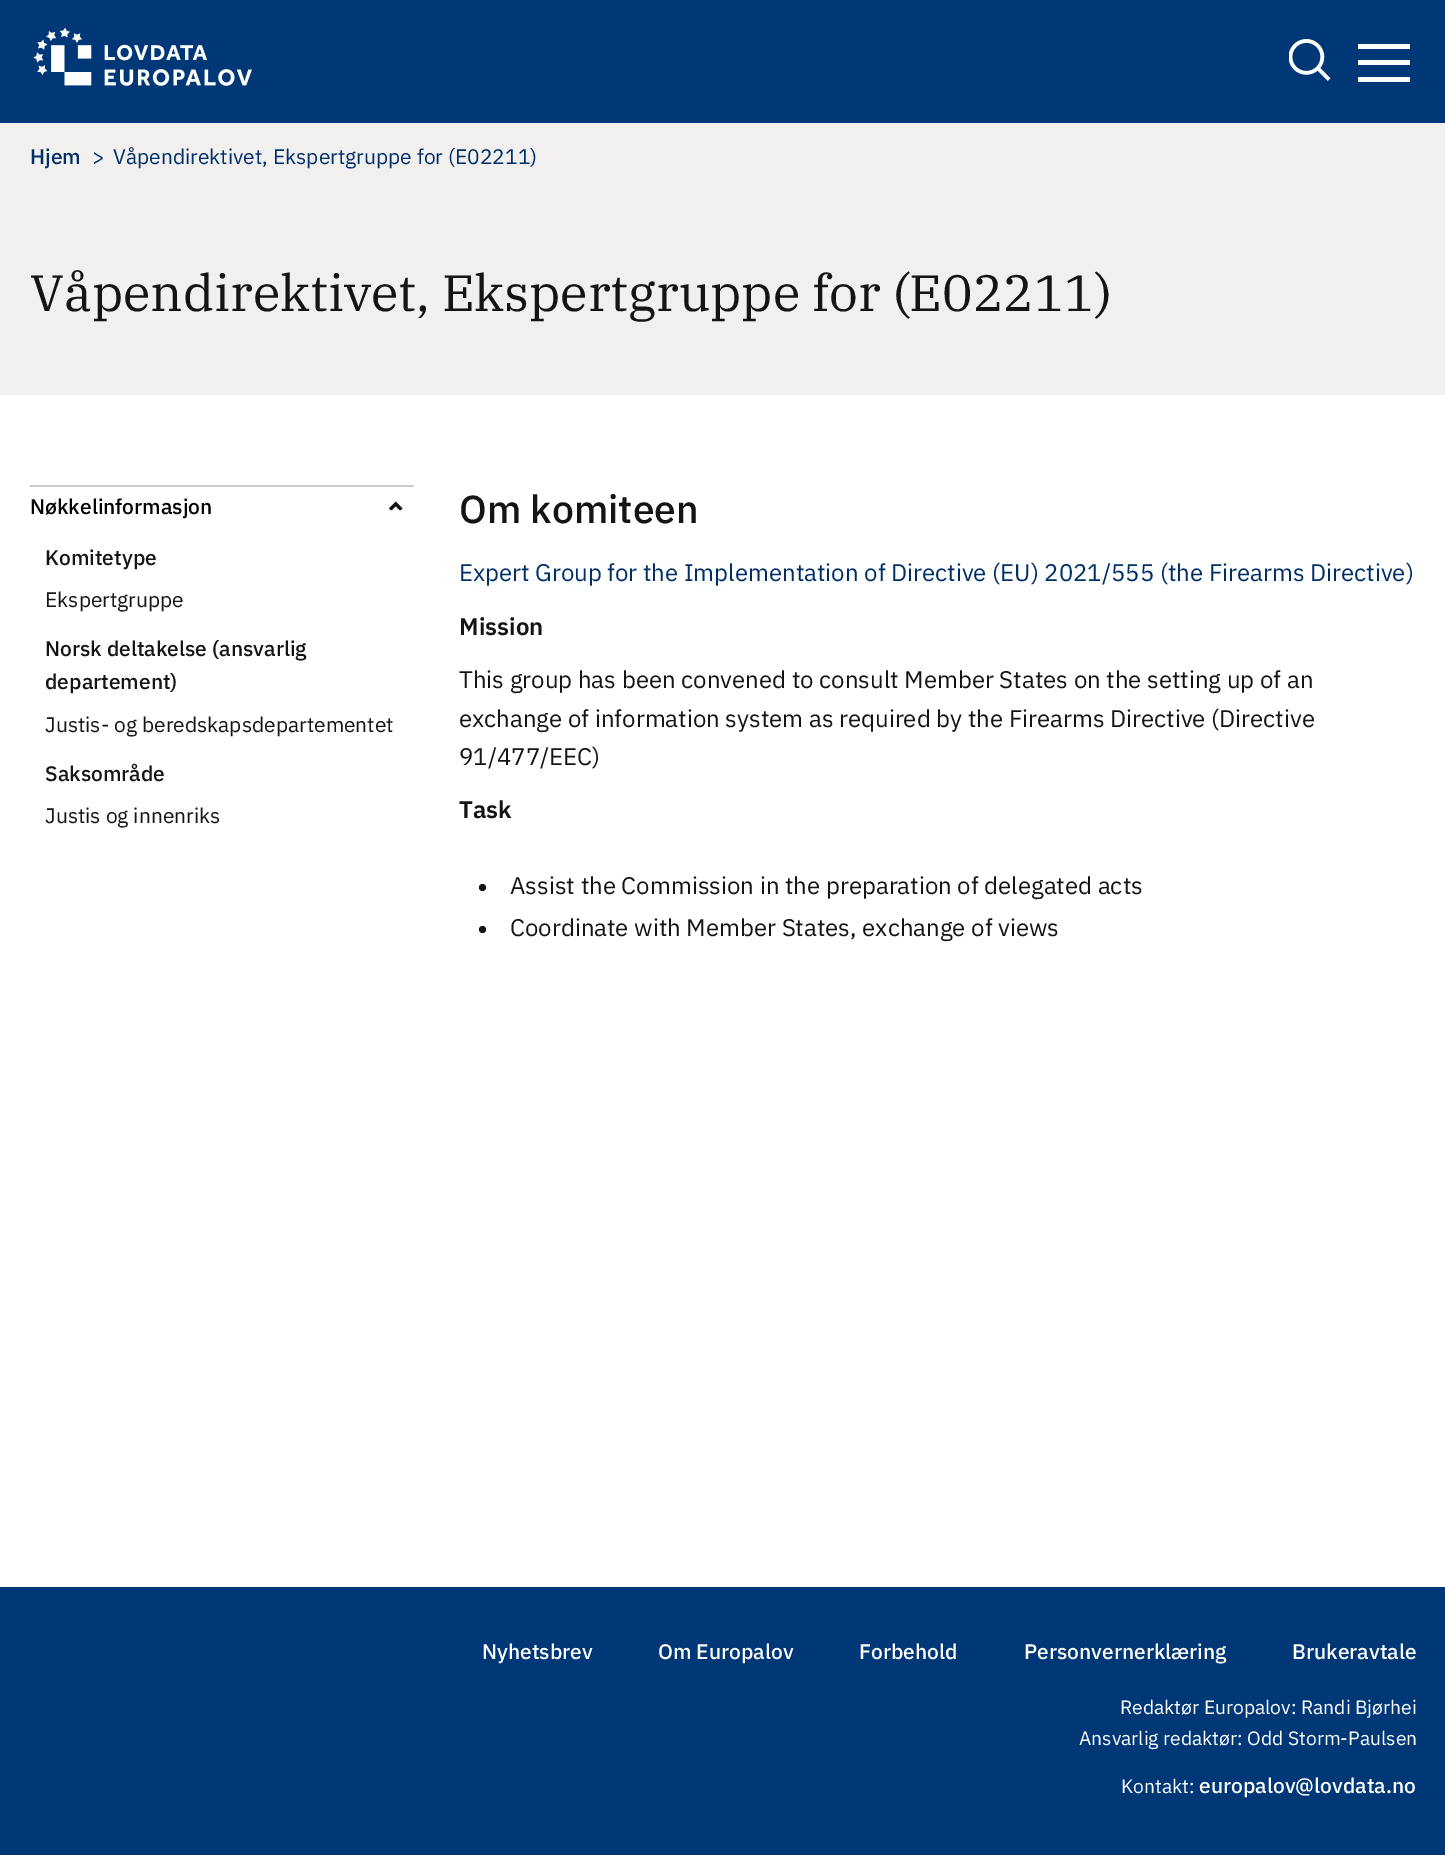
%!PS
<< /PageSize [1445 1855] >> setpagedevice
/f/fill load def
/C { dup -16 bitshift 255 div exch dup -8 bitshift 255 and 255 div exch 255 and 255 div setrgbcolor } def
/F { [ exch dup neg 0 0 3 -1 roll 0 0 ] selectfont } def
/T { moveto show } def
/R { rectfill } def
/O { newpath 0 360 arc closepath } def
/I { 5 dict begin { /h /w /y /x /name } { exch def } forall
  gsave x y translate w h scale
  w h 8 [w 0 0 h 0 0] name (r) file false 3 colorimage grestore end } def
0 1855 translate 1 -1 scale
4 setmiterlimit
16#FFFFFF C
0 0 1445 1855 R
16#003776 C
0 0 1445 123 R
(1.rgb) 33 27 219 59 I
(2.rgb) 1289 39 42 42 I
16#FFFFFF C
1358 44 52 5 R
1358 60 52 5 R
1358 77 52 5 R
16#F1F0EF C
0 123 1445 272 R
/IBMPlexSans-Medium 21 F
16#002F67 C
(Hjem) 30 164 T
/IBMPlexSans-Regular 21 F
(>) 92 164 T
(Våpendirektivet, Ekspertgruppe for \(E02211\)) 113 164 T
/IBMPlexSerif-Regular 51 F
16#141414 C
(Våpendirektivet, Ekspertgruppe for \(E02211\)) 30 311 T
16#CBCBCB C
30 485 384 2 R
/IBMPlexSans-Medium 21 F
16#000000 C
(Nøkkelinformasjon) 30 514 T
(3.rgb) 389 501 14 10 I
16#141414 C
(Komitetype) 45 565 T
/IBMPlexSans-Regular 21 F
(Ekspertgruppe) 45 607 T
/IBMPlexSans-Medium 21 F
(Norsk deltakelse \(ansvarlig) 45 656 T
(departement\)) 45 689 T
/IBMPlexSans-Regular 21 F
(Justis- og beredskapsdepartementet) 45 732 T
/IBMPlexSans-Medium 21 F
(Saksområde) 45 781 T
/IBMPlexSans-Regular 21 F
(Justis og innenriks) 45 823 T
/IBMPlexSans-Medium 39 F
(Om komiteen) 459 523 T
/IBMPlexSans-Regular 24 F
16#002F67 C
(Expert Group for the Implementation of Directive \(EU\) 2021/555 \(the Firearms Directive\)) 459 581 T
/IBMPlexSans-SemiBold 24 F
16#141414 C
(Mission) 459 635 T
/IBMPlexSans-Regular 24 F
(This group has been convened to consult Member States on the setting up of an) 459 688 T
(exchange of information system as required by the Firearms Directive \(Directive) 459 727 T
(91/477/EEC\)) 459 765 T
/IBMPlexSans-SemiBold 24 F
(Task) 459 818 T
482.5 887.5 3.5 O f
/IBMPlexSans-Regular 24 F
(Assist the Commission in the preparation of delegated acts) 510 894 T
482.5 929.5 3.5 O f
(Coordinate with Member States, exchange of views) 510 936 T
16#003776 C
0 1587 1445 268 R
/IBMPlexSans-Medium 21 F
16#FFFFFF C
(Nyhetsbrev) 482 1659 T
(Om Europalov) 658 1659 T
(Forbehold) 859 1659 T
(Personvernerklæring) 1024 1659 T
(Brukeravtale) 1292 1659 T
/IBMPlexSans-Regular 19.25 F
(Redaktør Europalov: Randi Bjørhei) 1120 1714 T
(Ansvarlig redaktør: Odd Storm-Paulsen) 1079 1745 T
(Kontakt:) 1121 1793 T
/IBMPlexSans-Medium 21 F
(europalov@lovdata.no) 1199 1793 T
showpage
